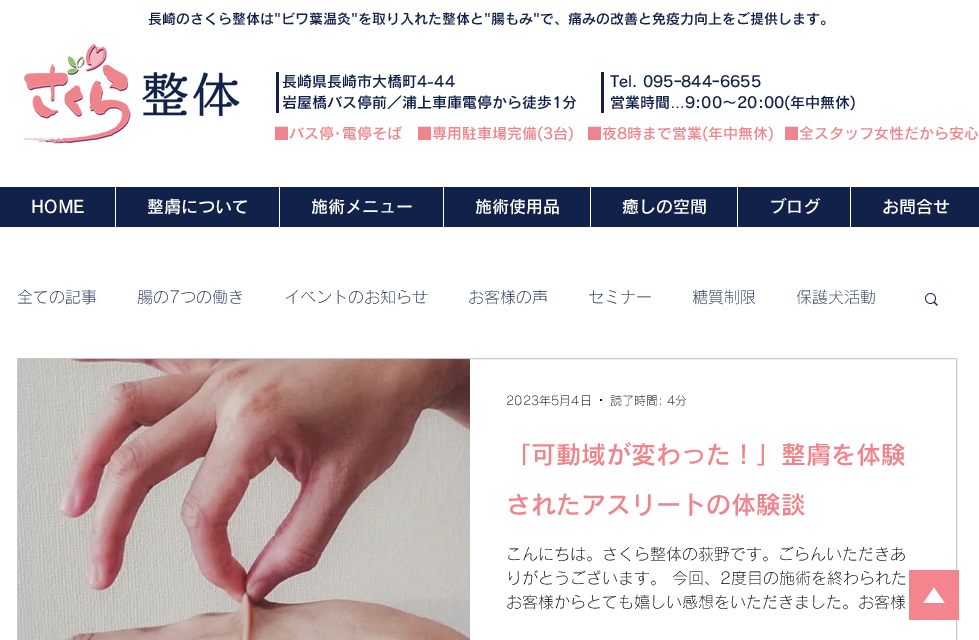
%!PS
<< /PageSize [979 640] >> setpagedevice
/m/moveto load def
/l/rlineto load def
/z/closepath load def
/f/fill load def
/C { dup -16 bitshift 255 div exch dup -8 bitshift 255 and 255 div exch 255 and 255 div setrgbcolor } def
/F { [ exch dup neg 0 0 3 -1 roll 0 0 ] selectfont } def
/T { moveto show } def
/R { rectfill } def
/O { newpath 0 360 arc closepath } def
/I { 5 dict begin { /h /w /y /x /name } { exch def } forall
  gsave x y translate w h scale
  w h 8 [w 0 0 h 0 0] name (r) file false 3 colorimage grestore end } def
0 640 translate 1 -1 scale
4 setmiterlimit
16#FFFFFF C
0 0 979 640 R
/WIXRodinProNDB-SemiBold 14 F
16#112149 C
(長崎のさくら整体は"ビワ葉温灸"を取り入れた整体と"腸もみ"で、痛みの改善と免疫力向上をご提供します。) 148 24 T
(1.rgb) 23 44 217 100 I
276 72 3 41 R
/WIXRodinProNDB-SemiBold 15 F
(長崎県長崎市大橋町4-44) 282 87 T
(岩屋橋バス停前／浦上車庫電停から徒歩1分) 282 108 T
601 72 3 41 R
(Tel. 095ｰ844ｰ6655) 610 87 T
(営業時間) 610 108 T
/LiberationSans-Regular 15 F
(…) 670 108 T
/WIXRodinProNDB-SemiBold 15 F
(9:00～20:00\(年中無休\)) 685 108 T
16#EF858C C
(■バス停･電停そば) 274 139 T
(■専用駐車場完備\(3台\)) 417 139 T
(■夜8時まで営業\(年中無休\)) 587 139 T
(■全スタッフ女性だから安心) 784 139 T
16#112149 C
0 187 979 40 R
/WIXRodinProNDB-SemiBold 17 F
16#FFFFFF C
(HOME) 31 213 T
115 187 1 40 R
(整膚について) 147 213 T
279 187 1 40 R
(施術メニュー) 311 213 T
443 187 1 40 R
(施術使用品) 475 213 T
590 187 1 40 R
(癒しの空間) 622 213 T
737 187 1 40 R
(ブログ) 769 213 T
850 187 1 40 R
(お問合せ) 882 213 T
/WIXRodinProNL-Light 16 F
16#112149 C
(全ての記事) 17 303 T
(腸の7つの働き) 137 303 T
(イベントのお知らせ) 284 303 T
(お客様の声) 468 303 T
(セミナー) 588 303 T
(糖質制限) 692 303 T
(保護犬活動) 796 303 T
(2.rgb) 925 293 13 13 I
16#C7C7C7 C
17.5 358.5 939 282 rectstroke
(3.rgb) 18 359 452 281 I
/WIXRodinProNL-Light 12 F
16#000000 C
(2023年5月4日) 506 405 T
601 400 1 O f
(読了時間: 4分) 610 405 T
/WIXRodinProNDB-SemiBold 25 F
16#EF858C C
(「可動域が変わった！」整膚を体験) 506 464 T
(されたアスリートの体験談) 506 514 T
/WIXRodinProNL-Light 16 F
16#000000 C
(こんにちは。さくら整体の荻野です。ごらんいただきあ) 506 560 T
(りがとうございます。 今回、2度目の施術を終わられた) 506 584 T
(お客様からとても嬉しい感想をいただきました。お客様) 506 608 T
16#F4858E C
909 570 m 0 50 l 50 0 l 0 -50 l z 923 603 m 11 -16 l 11 16 l z f
showpage
